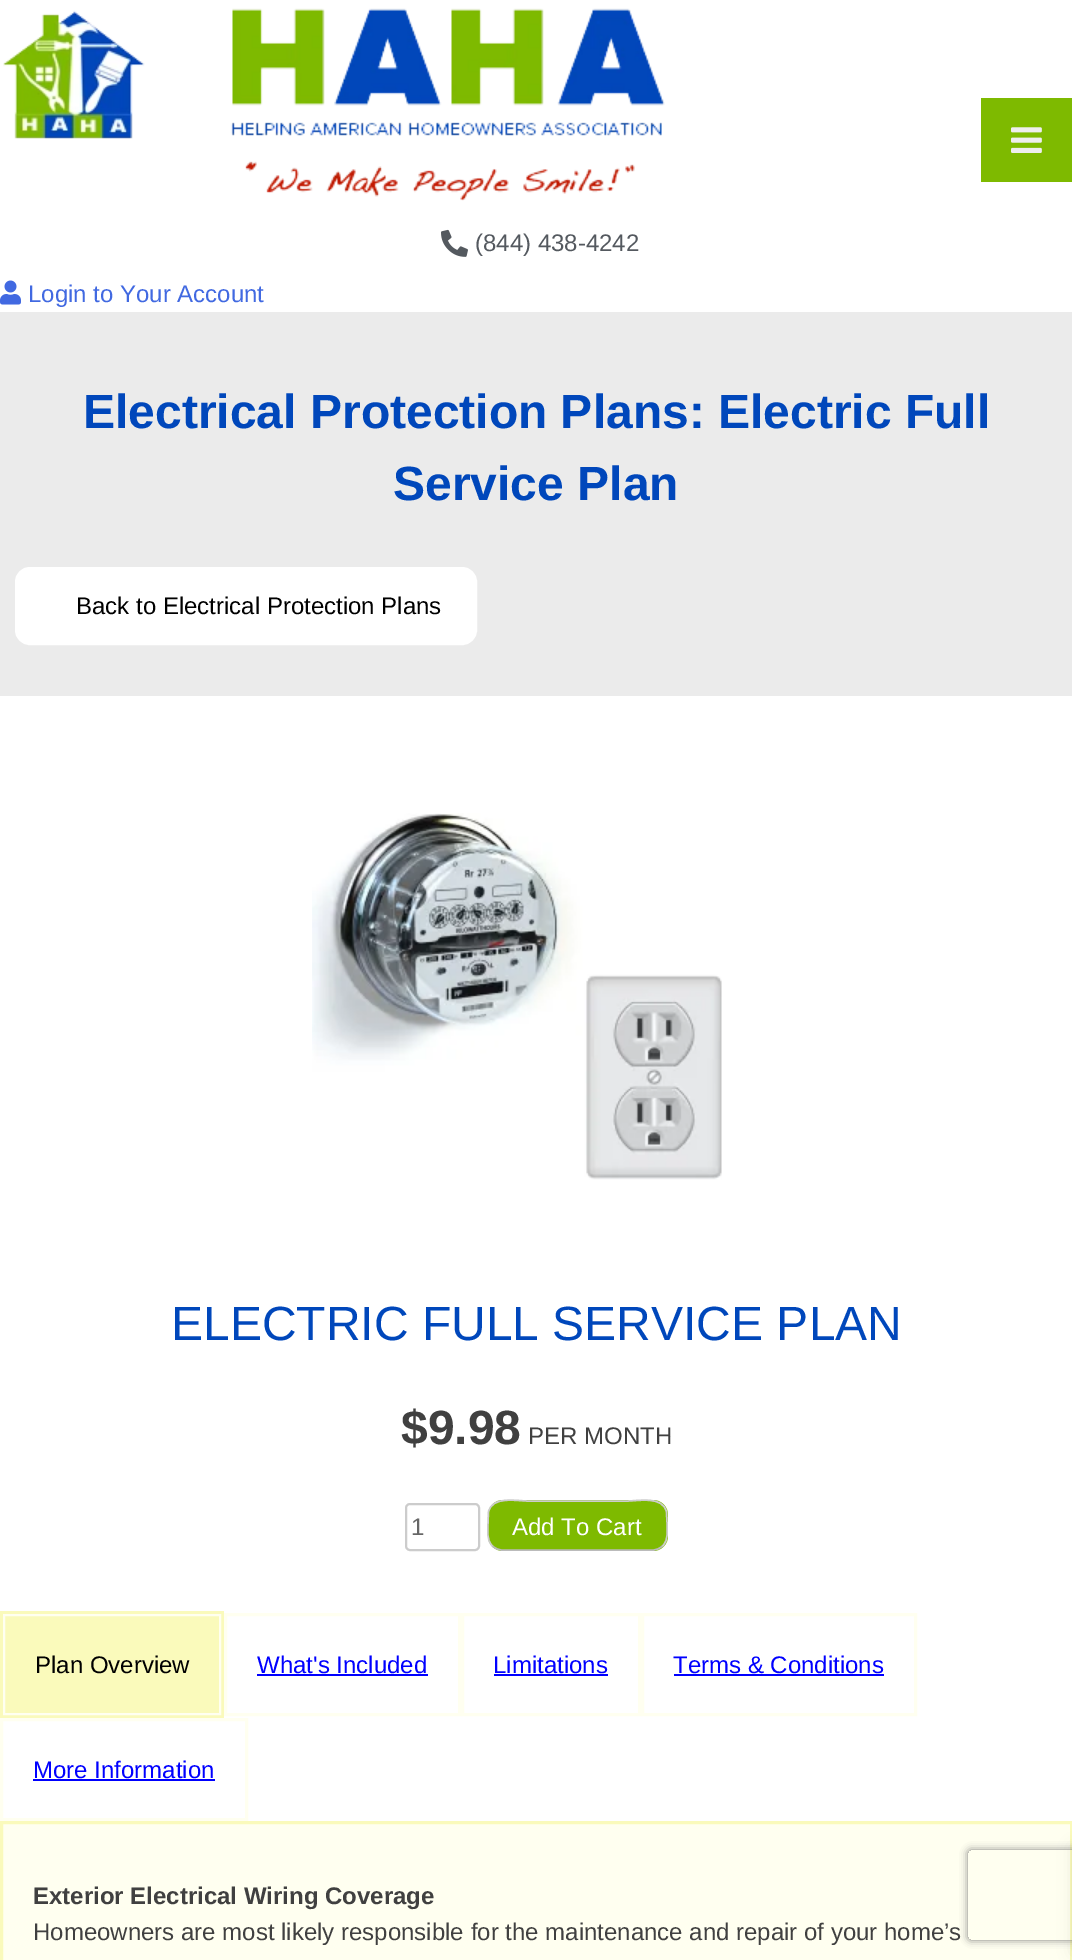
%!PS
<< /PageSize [1072 1960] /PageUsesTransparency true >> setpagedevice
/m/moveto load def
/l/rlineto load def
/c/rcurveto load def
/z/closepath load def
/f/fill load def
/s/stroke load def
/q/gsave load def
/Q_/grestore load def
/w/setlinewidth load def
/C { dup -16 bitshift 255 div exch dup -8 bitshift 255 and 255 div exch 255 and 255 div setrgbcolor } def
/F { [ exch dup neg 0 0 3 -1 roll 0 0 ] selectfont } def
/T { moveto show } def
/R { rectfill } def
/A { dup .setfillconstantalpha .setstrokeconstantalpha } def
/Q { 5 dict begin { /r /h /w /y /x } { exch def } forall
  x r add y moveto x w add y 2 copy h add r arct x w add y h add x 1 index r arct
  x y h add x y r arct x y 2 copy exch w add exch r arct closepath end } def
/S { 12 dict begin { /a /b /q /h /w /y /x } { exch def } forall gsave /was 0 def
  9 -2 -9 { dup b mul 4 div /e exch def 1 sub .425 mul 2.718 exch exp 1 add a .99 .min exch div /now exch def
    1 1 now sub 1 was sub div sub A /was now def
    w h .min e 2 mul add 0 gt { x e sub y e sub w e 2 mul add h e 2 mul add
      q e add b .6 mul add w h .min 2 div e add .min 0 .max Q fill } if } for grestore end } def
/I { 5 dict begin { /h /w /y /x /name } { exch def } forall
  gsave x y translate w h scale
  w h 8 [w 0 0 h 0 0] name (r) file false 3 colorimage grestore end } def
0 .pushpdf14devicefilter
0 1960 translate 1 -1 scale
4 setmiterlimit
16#FFFFFF C
0 0 1072 1960 R
16#7EBA00 C
981 98 91 84 R
(1.rgb) 1011 127 31 26 I
(2.rgb) 3 8 662 193 I
(3.rgb) 441 229 27 28 I
/LiberationSans-Regular 24 F
16#54595F C
(\(844\) 438-4242) 475 251 T
(4.rgb) 0 280 21 25 I
16#4169E1 C
(Login to Your Account) 28 302 T
16#EBEBEB C
0 312 1072 384 R
/LiberationSans-Bold 48 F
16#0047BB C
(Electrical Protection Plans: Electric Full) 83 428 T
(Service Plan) 393 500 T
16#FFFFFF C
18 570 456 72 12 Q q f Q_
6 w
s
/LiberationSans-Regular 24 F
16#000000 C
(Back to Electrical Protection Plans) 76 614 T
(5.rgb) 312 813 410 367 I
/LiberationSans-Regular 48 F
16#0047BB C
(ELECTRIC FULL SERVICE PLAN) 171 1340 T
/LiberationSans-Bold 48 F
16#404040 C
($9.98) 401 1444 T
/LiberationSans-Regular 24 F
(PER MONTH) 528 1444 T
16#CCCCCC C
2 w
406 1504 73 46 4 Q s
16#666666 C
(1) 411 1535 T
16#7EBA00 C
488 1500 180 51 15 Q f
16#BBBBBB C
1.5 w
662.5 1546 m -2.5 2.5 -6 4 -10 4 c -150 0 l -4 0 -7.5 -1.5 -10 -4 c s
16#CCCCCC C
492.5 1546 m -6.5 -6 -4.5 -16 -4.5 -24 c .5 -10 l 3.5 -16.5 28.5 -11 39 -11 c 100 0 l 10.5 0 35.5 -5.5 39 11 c .5 10 l 0 8 2 18 -4.5 24 c s
16#FFFFFF C
(Add To Cart) 512 1535 T
16#FAFABB C
0 1611 224 107 R
16#FFFFF0 C
2 w
4 1615 216 99 rectstroke
16#000000 C
(Plan Overview) 35 1673 T
16#FFFFF0 C
3 w
225.5 1614.5 234 100 rectstroke
16#0000FF C
(What's Included) 257 1673 T
257 1674 171 2 R
16#FFFFF0 C
462.5 1614.5 177 100 rectstroke
16#0000FF C
(Limitations) 493 1673 T
494 1674 114 2 R
16#FFFFF0 C
642.5 1614.5 273 100 rectstroke
16#0000FF C
(Terms & Conditions) 673 1673 T
674 1674 210 2 R
16#FFFFF0 C
1.5 1719.5 245 100 rectstroke
16#0000FF C
(More Information) 33 1778 T
33 1779 182 2 R
16#FFFFF0 C
1.5 1822.5 m 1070 0 l 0 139 l -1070 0 l z q f Q_
16#FAFABB C
s
/LiberationSans-Bold 24 F
16#404040 C
(Exterior Electrical Wiring Coverage) 33 1904 T
/LiberationSans-Regular 24 F
(Homeowners are most likely responsible for the maintenance and repair of your home’s) 33 1940 T
16#000000 C
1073 1847 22 106 0 7.5 .1 S
q
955 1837 m 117 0 l 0 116 l -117 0 l z 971 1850 m 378 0 l 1.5 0 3 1.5 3 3 c 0 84 l 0 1.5 -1.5 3 -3 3 c -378 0 l -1.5 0 -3 -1.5 -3 -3 c 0 -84 l 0 -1.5 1.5 -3 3 -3 c z eoclip newpath
16#808080 C
968 1850 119 90 3 4 1 S
Q_
.poppdf14devicefilter showpage
